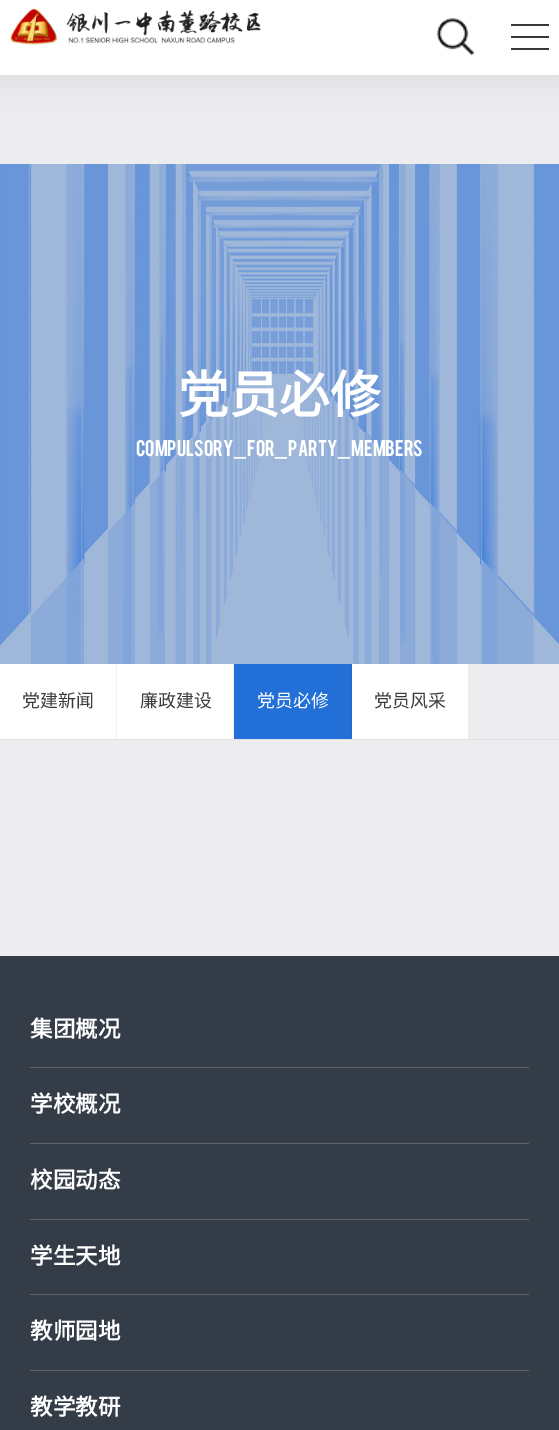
%!PS
<< /PageSize [559 1430] /PageUsesTransparency true >> setpagedevice
/C { dup -16 bitshift 255 div exch dup -8 bitshift 255 and 255 div exch 255 and 255 div setrgbcolor } def
/F { [ exch dup neg 0 0 3 -1 roll 0 0 ] selectfont } def
/T { moveto show } def
/R { rectfill } def
/A { dup .setfillconstantalpha .setstrokeconstantalpha } def
/Q { 5 dict begin { /r /h /w /y /x } { exch def } forall
  x r add y moveto x w add y 2 copy h add r arct x w add y h add x 1 index r arct
  x y h add x y r arct x y 2 copy exch w add exch r arct closepath end } def
/S { 12 dict begin { /a /b /q /h /w /y /x } { exch def } forall gsave /was 0 def
  9 -2 -9 { dup b mul 4 div /e exch def 1 sub .425 mul 2.718 exch exp 1 add a .99 .min exch div /now exch def
    1 1 now sub 1 was sub div sub A /was now def
    w h .min e 2 mul add 0 gt { x e sub y e sub w e 2 mul add h e 2 mul add
      q e add b .6 mul add w h .min 2 div e add .min 0 .max Q fill } if } for grestore end } def
/I { 5 dict begin { /h /w /y /x /name } { exch def } forall
  gsave x y translate w h scale
  w h 8 [w 0 0 h 0 0] name (r) file false 3 colorimage grestore end } def
0 .pushpdf14devicefilter
0 1430 translate 1 -1 scale
4 setmiterlimit
16#EDEDEF C
0 0 559 1430 R
16#000000 C
0 0 559 75 0 18.5 .1 S
16#FFFFFF C
0 0 559 75 R
(1.rgb) 10 8 251 37 I
(2.rgb) 437 18 37 37 I
16#383838 C
511 24 38 2 R
511 36 38 2 R
511 48 38 2 R
(3.rgb) 0 164 559 500 I
/NotoSansCJKSC-Bold 50.5 F
16#FFFFFF C
(党员必修) 178 413 T
/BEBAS-Regular 17.9 F
(COMPULSORY_FOR_PARTY_MEMBERS) 136 456 T
16#E1E1E3 C
0 739 559 1 R
16#FFFFFF C
0 664 116 75 R
16#F2F2F2 C
116 664 1 75 R
/NotoSansCJKSC-Regular 17.9 F
16#3C3C3C C
(党建新闻) 22 707 T
16#FFFFFF C
117 664 116 75 R
16#F2F2F2 C
233 664 1 75 R
16#3C3C3C C
(廉政建设) 140 707 T
16#226FD8 C
234 664 117 75 R
16#2069CD C
351 664 1 75 R
16#FFFFFF C
(党员必修) 257 707 T
352 664 116 75 R
16#3C3C3C C
(党员风采) 374 707 T
16#343C48 C
0 956 559 474 R
16#5D636D C
30 1067 499 1 R
/NotoSansCJKSC-Bold 22.5 F
16#FFFFFF C
(集团概况) 30 1037 T
16#5D636D C
30 1143 499 1 R
16#FFFFFF C
(学校概况) 30 1112 T
16#5D636D C
30 1219 499 1 R
16#FFFFFF C
(校园动态) 30 1188 T
16#5D636D C
30 1294 499 1 R
16#FFFFFF C
(学生天地) 30 1264 T
16#5D636D C
30 1370 499 1 R
16#FFFFFF C
(教师园地) 30 1339 T
(教学教研) 30 1415 T
.poppdf14devicefilter showpage
